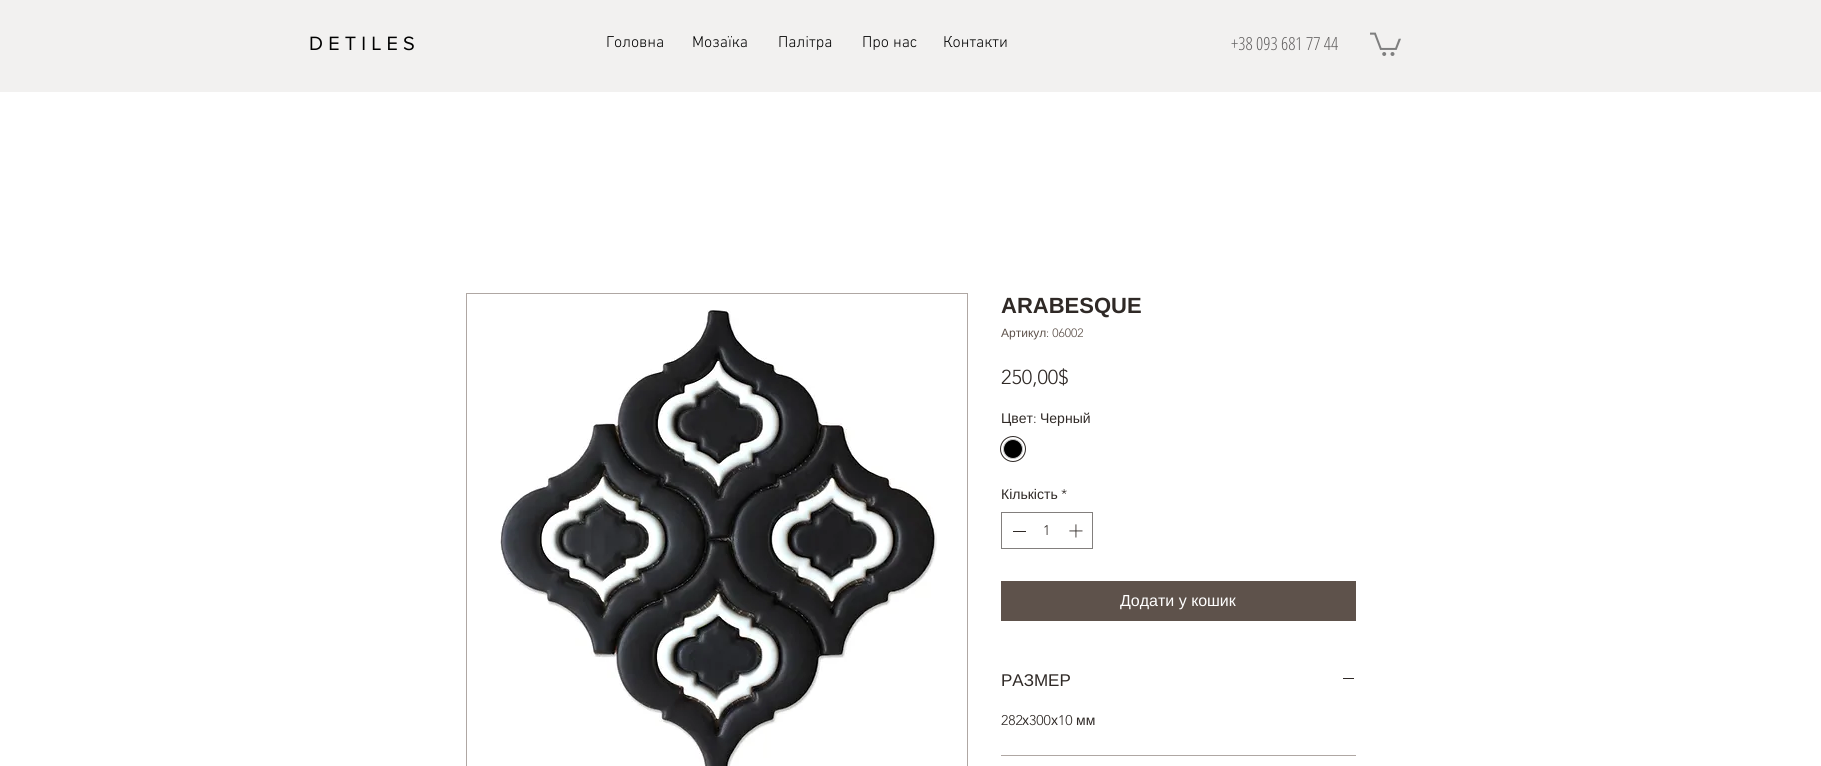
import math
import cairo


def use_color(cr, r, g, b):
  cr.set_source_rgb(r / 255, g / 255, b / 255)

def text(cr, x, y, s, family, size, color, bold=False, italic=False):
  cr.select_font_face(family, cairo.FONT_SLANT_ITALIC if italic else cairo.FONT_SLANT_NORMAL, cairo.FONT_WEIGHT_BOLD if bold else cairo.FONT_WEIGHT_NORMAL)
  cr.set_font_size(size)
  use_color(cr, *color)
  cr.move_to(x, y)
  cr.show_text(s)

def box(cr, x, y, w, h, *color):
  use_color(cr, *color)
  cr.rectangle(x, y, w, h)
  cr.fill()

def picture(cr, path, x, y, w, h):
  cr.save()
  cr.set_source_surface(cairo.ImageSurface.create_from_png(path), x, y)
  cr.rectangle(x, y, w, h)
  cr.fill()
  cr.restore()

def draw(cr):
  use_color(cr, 255, 255, 255)
  cr.paint()
  box(cr, 0, 0, 1821, 92, 242, 241, 240)
  picture(cr, "img_01.png", 1370, 32, 31, 24)
  cr.rectangle(466.5, 293.5, 501, 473)
  use_color(cr, 175, 167, 163)
  cr.set_line_width(1)
  cr.stroke()
  picture(cr, "img_02.png", 500, 310, 437, 456)
  cr.arc(1013, 449, 12.5, 0, 2 * math.pi)
  use_color(cr, 47, 41, 38)
  cr.stroke()
  use_color(cr, 0, 0, 0)
  cr.arc(1013, 449, 9.5, 0, 2 * math.pi)
  cr.fill_preserve()
  use_color(cr, 201, 201, 201)
  cr.stroke()
  cr.rectangle(1001.5, 512.5, 91, 36)
  use_color(cr, 130, 127, 125)
  cr.stroke()
  box(cr, 1013, 531, 13, 1, 47, 41, 38)
  picture(cr, "img_03.png", 1069, 524, 14, 14)
  box(cr, 1001, 581, 355, 40, 94, 82, 75)
  box(cr, 1001, 755, 355, 1, 175, 167, 163)
  box(cr, 1343, 678, 11, 1, 47, 41, 38)
  text(cr, 309, 50, "D E T I L E S", "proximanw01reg", 20, (0, 0, 0))
  text(cr, 606, 47, "Головна", "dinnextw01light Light", 16, (0, 0, 0))
  text(cr, 692, 47, "Мозаїка", "dinnextw01light Light", 16, (0, 0, 0))
  text(cr, 778, 47, "Палітра", "dinnextw01light Light", 16, (0, 0, 0))
  text(cr, 862, 47, "Про нас", "dinnextw01light Light", 16, (0, 0, 0))
  text(cr, 943, 47, "Контакти", "dinnextw01light Light", 16, (0, 0, 0))
  text(cr, 1231, 50, "+38 093 681 77 44", "Open Sans Condensed Light", 18, (96, 94, 94))
  text(cr, 1001, 313, "ARABESQUE", "Liberation Sans", 22, (47, 41, 38), bold=True)
  text(cr, 1001, 337, "Артикул", "Liberation Sans", 12, (94, 82, 75))
  text(cr, 1046, 337, ": 06002", "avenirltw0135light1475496 Light", 12, (94, 82, 75))
  text(cr, 1001, 384, "250,00$", "avenirltw0135light1475496 Light", 20, (47, 41, 38))
  text(cr, 1001, 423, "Цвет", "Liberation Sans", 14, (47, 41, 38))
  text(cr, 1033, 423, ":", "avenirltw0135light1475496 Light", 14, (47, 41, 38))
  text(cr, 1040, 423, "Черный", "Liberation Sans", 14, (47, 41, 38))
  text(cr, 1001, 499, "Кількість", "Liberation Sans", 14, (47, 41, 38))
  text(cr, 1061, 499, "*", "avenirltw0135light1475496 Light", 14, (47, 41, 38))
  text(cr, 1043, 535, "1", "avenirltw0135light1475496 Light", 14, (47, 41, 38))
  text(cr, 1120, 606, "Додати у кошик", "Liberation Sans", 16, (255, 255, 255))
  text(cr, 1001, 686, "РАЗМЕР", "Liberation Sans", 17, (47, 41, 38))
  text(cr, 1001, 725, "282", "avenirltw0135light1475496 Light", 14, (47, 41, 38))
  text(cr, 1022, 725, "х", "Liberation Sans", 14, (47, 41, 38))
  text(cr, 1029, 725, "300", "avenirltw0135light1475496 Light", 14, (47, 41, 38))
  text(cr, 1051, 725, "х", "Liberation Sans", 14, (47, 41, 38))
  text(cr, 1058, 725, "10", "avenirltw0135light1475496 Light", 14, (47, 41, 38))
  text(cr, 1076, 725, "мм", "Liberation Sans", 14, (47, 41, 38))


surface = cairo.ImageSurface(cairo.FORMAT_RGB24, 1821, 766)
cr = cairo.Context(surface)
options = cairo.FontOptions()
options.set_hint_metrics(cairo.HINT_METRICS_OFF)
options.set_hint_style(cairo.HINT_STYLE_NONE)
cr.set_font_options(options)
cr.set_miter_limit(4)
draw(cr)
surface.write_to_png("out.png")
